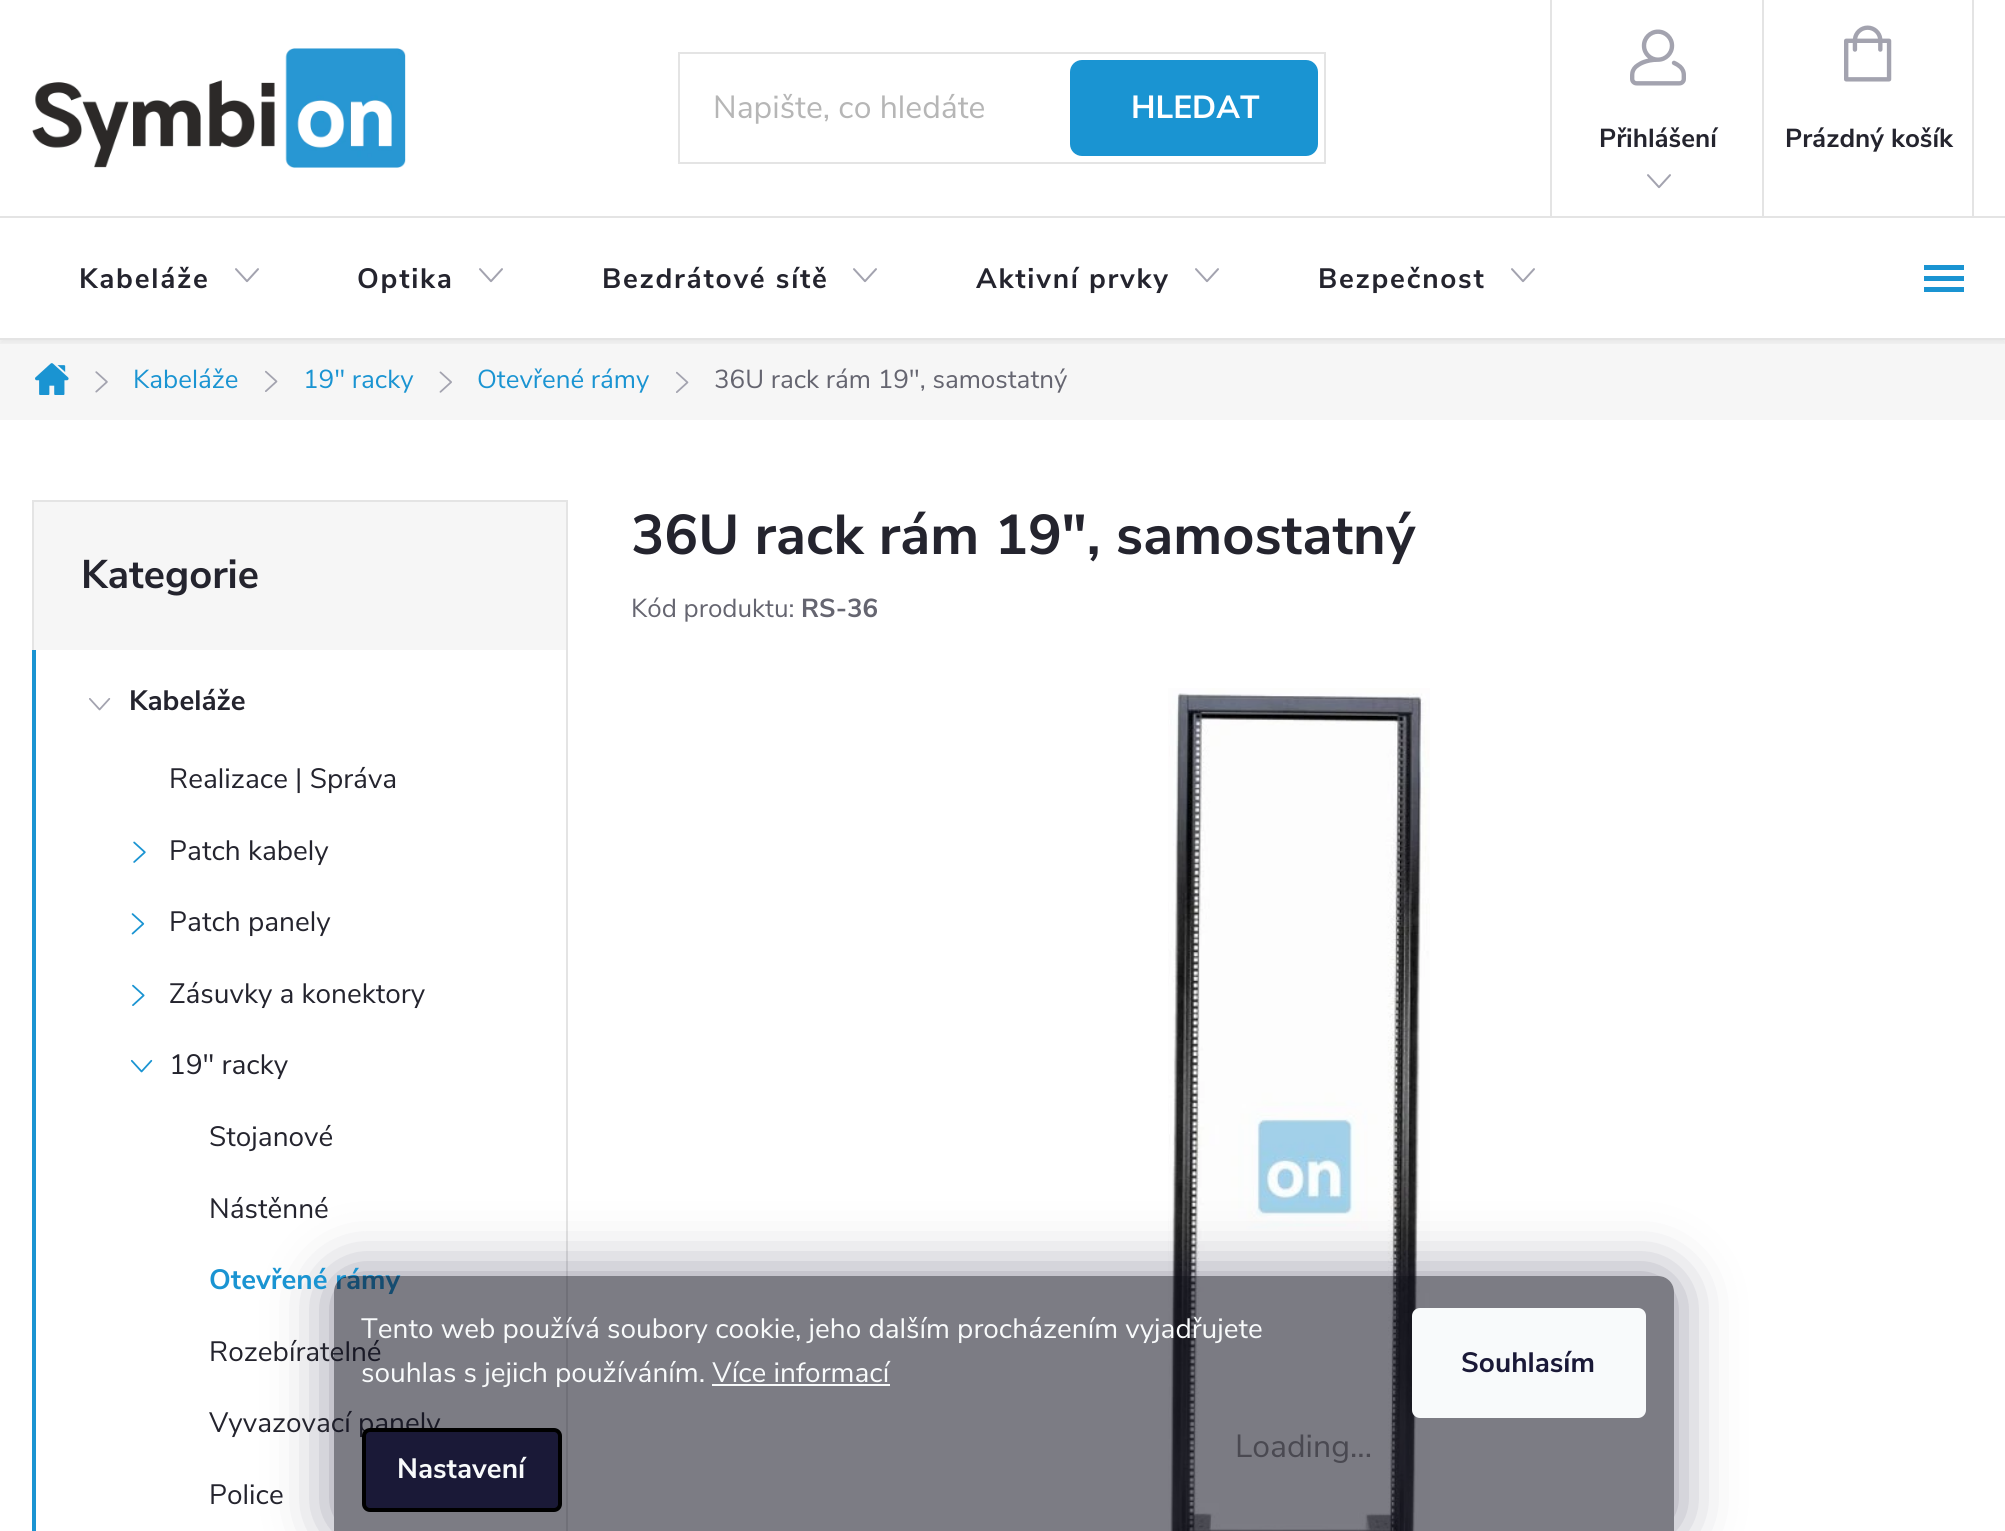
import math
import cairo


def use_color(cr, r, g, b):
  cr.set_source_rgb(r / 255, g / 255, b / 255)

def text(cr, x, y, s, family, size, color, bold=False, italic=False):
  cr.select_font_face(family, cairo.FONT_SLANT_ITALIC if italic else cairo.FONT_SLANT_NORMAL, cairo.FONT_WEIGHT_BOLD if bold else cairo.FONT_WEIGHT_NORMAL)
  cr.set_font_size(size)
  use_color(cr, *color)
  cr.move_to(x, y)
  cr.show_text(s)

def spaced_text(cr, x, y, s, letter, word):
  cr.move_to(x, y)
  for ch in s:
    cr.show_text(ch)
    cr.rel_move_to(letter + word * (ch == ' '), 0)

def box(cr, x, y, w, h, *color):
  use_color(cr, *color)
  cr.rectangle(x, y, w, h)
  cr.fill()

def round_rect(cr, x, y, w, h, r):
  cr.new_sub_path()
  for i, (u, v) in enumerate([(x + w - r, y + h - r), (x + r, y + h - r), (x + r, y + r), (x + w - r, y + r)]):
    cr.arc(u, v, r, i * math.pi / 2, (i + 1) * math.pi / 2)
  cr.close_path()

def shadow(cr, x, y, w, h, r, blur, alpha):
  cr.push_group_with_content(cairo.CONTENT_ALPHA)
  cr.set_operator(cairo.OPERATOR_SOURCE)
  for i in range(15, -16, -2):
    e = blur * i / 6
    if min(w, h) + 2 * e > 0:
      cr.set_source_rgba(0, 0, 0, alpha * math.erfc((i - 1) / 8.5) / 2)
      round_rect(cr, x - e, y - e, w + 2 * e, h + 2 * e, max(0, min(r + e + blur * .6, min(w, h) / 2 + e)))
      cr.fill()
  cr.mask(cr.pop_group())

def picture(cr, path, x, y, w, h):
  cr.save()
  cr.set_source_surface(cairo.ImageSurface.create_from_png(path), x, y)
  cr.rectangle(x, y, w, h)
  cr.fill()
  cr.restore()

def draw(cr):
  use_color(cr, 255, 255, 255)
  cr.paint()
  picture(cr, "img_01.png", 32, 48, 374, 120)
  cr.rectangle(679, 53, 646, 110)
  use_color(cr, 228, 228, 228)
  cr.stroke()
  use_color(cr, 26, 148, 210)
  round_rect(cr, 1071, 61, 246, 94, 11)
  cr.fill_preserve()
  cr.stroke()
  box(cr, 1550, 0, 2, 216, 228, 228, 228)
  picture(cr, "img_02.png", 1630, 29, 56, 57)
  picture(cr, "img_03.png", 1647, 174, 24, 15)
  box(cr, 1972, 0, 2, 216, 228, 228, 228)
  box(cr, 1762, 0, 2, 216, 228, 228, 228)
  picture(cr, "img_04.png", 1844, 25, 48, 57)
  box(cr, 0, 340, 2005, 80, 246, 246, 246)
  cr.save()
  cr.rectangle(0, 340, 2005, 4)
  cr.clip()
  use_color(cr, 0, 0, 0)
  shadow(cr, 0, 220, 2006, 124, 0, 2, 0.05)
  cr.restore()
  picture(cr, "img_03.png", 235, 268, 24, 15)
  picture(cr, "img_03.png", 479, 268, 24, 15)
  picture(cr, "img_03.png", 853, 268, 24, 15)
  picture(cr, "img_03.png", 1195, 268, 24, 15)
  picture(cr, "img_03.png", 1511, 268, 24, 15)
  use_color(cr, 26, 148, 210)
  cr.new_path()
  cr.move_to(1924, 292)
  cr.line_to(1964, 292)
  cr.line_to(1964, 287)
  cr.line_to(1924, 287)
  cr.close_path()
  cr.move_to(1924, 281)
  cr.line_to(1964, 281)
  cr.line_to(1964, 276)
  cr.line_to(1924, 276)
  cr.close_path()
  cr.move_to(1924, 265)
  cr.line_to(1924, 270)
  cr.line_to(1964, 270)
  cr.line_to(1964, 265)
  cr.close_path()
  cr.fill()
  box(cr, 0, 216, 2005, 2, 228, 228, 228)
  box(cr, 0, 338, 2005, 2, 228, 228, 228)
  picture(cr, "img_05.png", 35, 363, 34, 32)
  picture(cr, "img_06.png", 95, 371, 13, 22)
  picture(cr, "img_07.png", 265, 370, 13, 22)
  picture(cr, "img_08.png", 439, 371, 13, 22)
  picture(cr, "img_09.png", 676, 371, 13, 22)
  box(cr, 34, 502, 532, 148, 246, 246, 246)
  cr.rectangle(33, 501, 534, 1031)
  use_color(cr, 228, 228, 228)
  cr.stroke()
  box(cr, 32, 650, 4, 881, 26, 148, 210)
  picture(cr, "img_10.png", 89, 698, 22, 13)
  picture(cr, "img_11.png", 133, 841, 13, 22)
  picture(cr, "img_12.png", 131, 913, 14, 22)
  picture(cr, "img_13.png", 132, 984, 13, 22)
  picture(cr, "img_14.png", 130, 1059, 23, 14)
  picture(cr, "img_15.png", 1168, 688, 262, 843)
  cr.save()
  cr.set_fill_rule(cairo.FILL_RULE_EVEN_ODD)
  cr.new_path()
  cr.move_to(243, 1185)
  cr.line_to(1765, 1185)
  cr.line_to(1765, 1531)
  cr.line_to(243, 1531)
  cr.close_path()
  cr.move_to(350, 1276)
  cr.line_to(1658, 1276)
  cr.curve_to(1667, 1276, 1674, 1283, 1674, 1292)
  cr.line_to(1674, 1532)
  cr.line_to(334, 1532)
  cr.line_to(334, 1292)
  cr.curve_to(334, 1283, 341, 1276, 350, 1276)
  cr.close_path()
  cr.clip()
  use_color(cr, 27, 25, 57)
  shadow(cr, 334, 1276, 1340, 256, 16, 30, 0.5)
  cr.restore()
  text(cr, 713, 118, "Napište, co hledáte", "Nunito Sans", 32, (182, 182, 182))
  text(cr, 1131, 118, "HLEDAT", "Nunito Sans", 32, (255, 255, 255), bold=True)
  text(cr, 1599, 147, "Přihlášení", "Nunito Sans", 26, (36, 36, 46), bold=True)
  text(cr, 1785, 147, "Prázdný košík", "Nunito Sans", 26, (36, 36, 46), bold=True)
  cr.set_font_size(28)
  spaced_text(cr, 79, 288, "Kabeláže", 1.75, 0)
  spaced_text(cr, 357, 288, "Optika", 1.75, 0)
  spaced_text(cr, 602, 288, "Bezdrátové sítě", 1.75, 0)
  spaced_text(cr, 976, 288, "Aktivní prvky", 1.75, 0)
  spaced_text(cr, 1318, 288, "Bezpečnost", 1.75, 0)
  text(cr, 133, 388, "Kabeláže", "Nunito Sans", 26, (26, 148, 210))
  text(cr, 303, 388, "19\" racky", "Nunito Sans", 26, (26, 148, 210))
  text(cr, 477, 388, "Otevřené rámy", "Nunito Sans", 26, (26, 148, 210))
  text(cr, 714, 388, "36U rack rám 19\", samostatný", "Nunito Sans", 26, (101, 101, 112))
  text(cr, 81, 588, "Kategorie", "Nunito Sans", 40, (36, 36, 46), bold=True)
  text(cr, 129, 710, "Kabeláže", "Nunito Sans", 28, (36, 36, 46), bold=True)
  text(cr, 169, 788, "Realizace | Správa", "Nunito Sans", 28, (36, 36, 46))
  text(cr, 169, 860, "Patch kabely", "Nunito Sans", 28, (36, 36, 46))
  text(cr, 169, 931, "Patch panely", "Nunito Sans", 28, (36, 36, 46))
  text(cr, 169, 1003, "Zásuvky a konektory", "Nunito Sans", 28, (36, 36, 46))
  text(cr, 169, 1074, "19\" racky", "Nunito Sans", 28, (36, 36, 46))
  text(cr, 209, 1146, "Stojanové", "Nunito Sans", 28, (36, 36, 46))
  text(cr, 209, 1218, "Nástěnné", "Nunito Sans", 28, (36, 36, 46))
  text(cr, 209, 1289, "Otevřené rámy", "Nunito Sans", 28, (26, 148, 210), bold=True)
  text(cr, 209, 1361, "Rozebíratelné", "Nunito Sans", 28, (36, 36, 46))
  text(cr, 209, 1432, "Vyvazovací panely", "Nunito Sans", 28, (36, 36, 46))
  text(cr, 209, 1504, "Police", "Nunito Sans", 28, (36, 36, 46))
  text(cr, 631, 554, "36U rack rám 19\", samostatný", "Nunito Sans", 56, (36, 36, 46), bold=True)
  text(cr, 631, 617, "Kód produktu:", "Nunito Sans", 26, (101, 101, 112))
  text(cr, 801, 617, "RS-36", "Nunito Sans", 26, (101, 101, 112), bold=True)
  text(cr, 1235, 1457, "Loading...", "Nunito Sans", 32, (144, 143, 143))
  cr.set_source_rgba(0.067, 0.067, 0.122, 0.55)
  cr.new_path()
  cr.move_to(350, 1276)
  cr.line_to(1658, 1276)
  cr.curve_to(1667, 1276, 1674, 1283, 1674, 1292)
  cr.line_to(1674, 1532)
  cr.line_to(334, 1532)
  cr.line_to(334, 1292)
  cr.curve_to(334, 1283, 341, 1276, 350, 1276)
  cr.close_path()
  cr.fill()
  text(cr, 361, 1338, "Tento web používá soubory cookie, jeho dalším procházením vyjadřujete", "Nunito Sans", 28, (248, 250, 251))
  text(cr, 361, 1382, "souhlas s jejich používáním. Více informací", "Nunito Sans", 28, (248, 250, 251))
  box(cr, 712, 1384, 178, 2, 248, 250, 251)
  use_color(cr, 26, 25, 55)
  round_rect(cr, 364, 1430, 196, 80, 6)
  cr.fill_preserve()
  use_color(cr, 0, 0, 0)
  cr.set_line_width(4)
  cr.stroke()
  text(cr, 397, 1478, "Nastavení", "Nunito Sans", 28, (248, 250, 251), bold=True)
  round_rect(cr, 1412, 1308, 234, 110, 8)
  cr.fill()
  text(cr, 1461, 1372, "Souhlasím", "Nunito Sans", 28, (26, 25, 55), bold=True)


surface = cairo.ImageSurface(cairo.FORMAT_RGB24, 2005, 1531)
cr = cairo.Context(surface)
options = cairo.FontOptions()
options.set_hint_metrics(cairo.HINT_METRICS_OFF)
options.set_hint_style(cairo.HINT_STYLE_NONE)
cr.set_font_options(options)
cr.set_miter_limit(4)
draw(cr)
surface.write_to_png("out.png")
